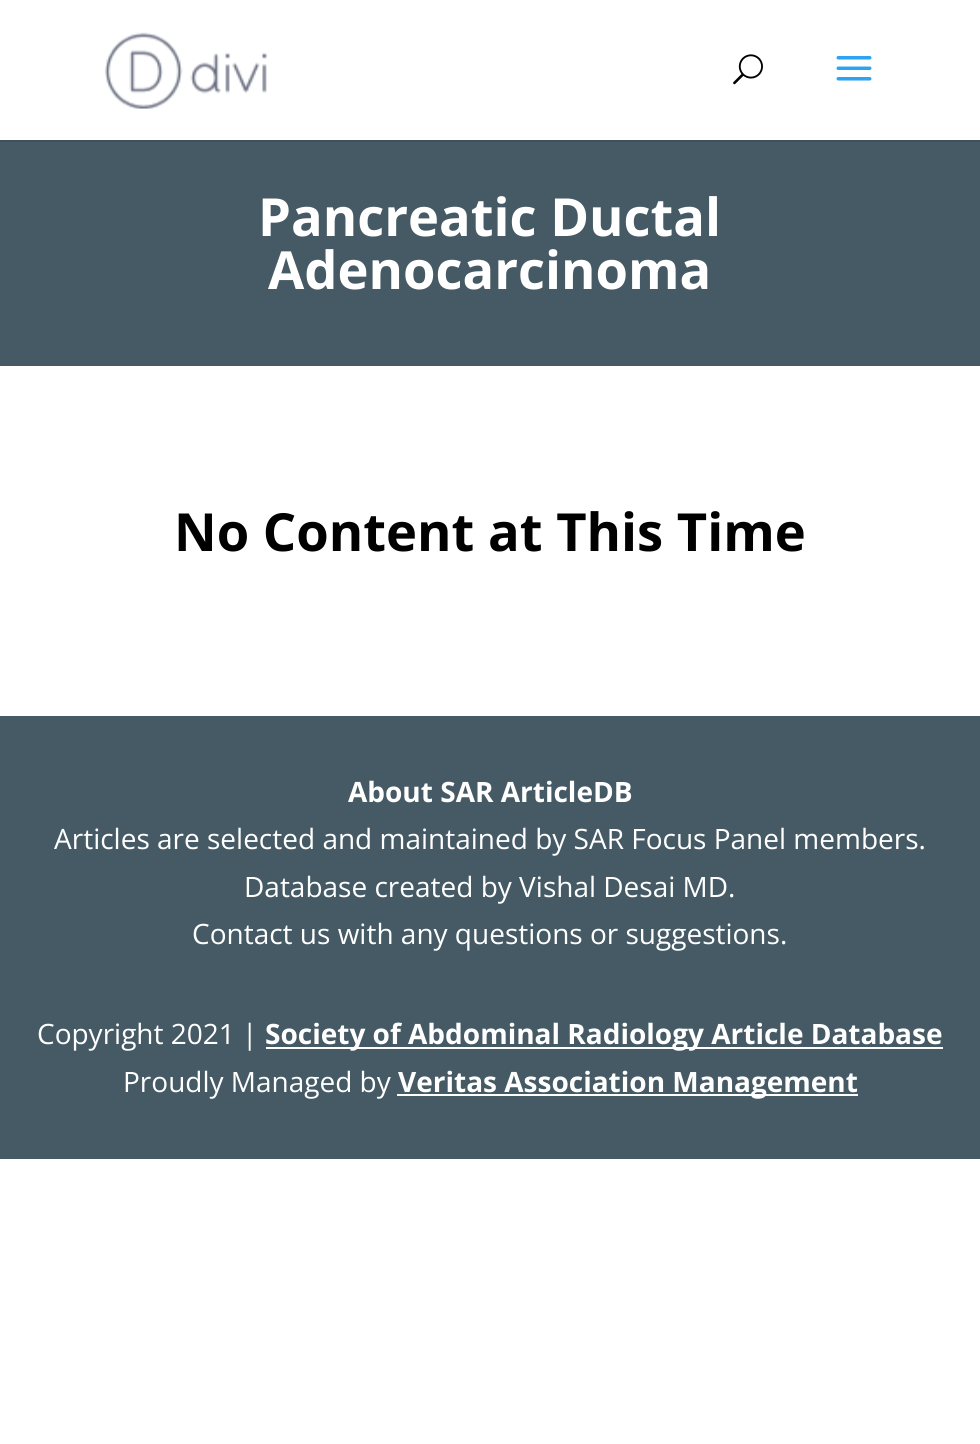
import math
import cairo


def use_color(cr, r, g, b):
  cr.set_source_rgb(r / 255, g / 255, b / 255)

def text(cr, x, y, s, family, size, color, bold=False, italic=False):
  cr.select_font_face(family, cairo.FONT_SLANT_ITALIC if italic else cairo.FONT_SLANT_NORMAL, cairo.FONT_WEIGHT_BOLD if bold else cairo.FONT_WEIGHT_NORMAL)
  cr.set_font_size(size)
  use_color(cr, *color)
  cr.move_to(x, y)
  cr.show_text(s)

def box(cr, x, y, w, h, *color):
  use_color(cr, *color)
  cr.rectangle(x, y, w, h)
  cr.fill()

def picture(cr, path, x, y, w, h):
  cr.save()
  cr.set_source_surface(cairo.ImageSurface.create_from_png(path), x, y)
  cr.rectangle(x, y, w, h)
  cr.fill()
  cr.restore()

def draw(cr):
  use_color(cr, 255, 255, 255)
  cr.paint()
  box(cr, 0, 140, 980, 2, 62, 81, 90)
  picture(cr, "img_01.png", 105, 32, 163, 77)
  picture(cr, "img_02.png", 733, 54, 30, 31)
  picture(cr, "img_03.png", 836, 56, 36, 25)
  box(cr, 0, 142, 980, 224, 69, 90, 100)
  box(cr, 0, 716, 980, 443, 69, 90, 100)
  box(cr, 266, 1047, 677, 2, 255, 255, 255)
  box(cr, 397, 1094, 461, 2, 255, 255, 255)
  text(cr, 258, 236, "Pancreatic Ductal", "Open Sans", 52.5, (255, 255, 255), bold=True)
  text(cr, 268, 289, "Adenocarcinoma", "Open Sans", 52.5, (255, 255, 255), bold=True)
  text(cr, 174, 551, "No Content at This Time", "Open Sans", 52.5, (0, 0, 0), bold=True)
  text(cr, 348, 802, "About SAR ArticleDB", "Open Sans", 28, (255, 255, 255), bold=True)
  text(cr, 54, 849, "Articles are selected and maintained by SAR Focus Panel members.", "Open Sans", 28, (255, 255, 255))
  text(cr, 244, 897, "Database created by Vishal Desai MD.", "Open Sans", 28, (255, 255, 255))
  text(cr, 192, 944, "Contact us with any questions or suggestions.", "Open Sans", 28, (255, 255, 255))
  text(cr, 37, 1044, "Copyright 2021 |", "Open Sans", 28, (255, 255, 255))
  text(cr, 265, 1044, "Society of Abdominal Radiology Article Database", "Open Sans", 28, (255, 255, 255), bold=True)
  text(cr, 123, 1092, "Proudly Managed by", "Open Sans", 28, (255, 255, 255))
  text(cr, 398, 1092, "Veritas Association Management", "Open Sans", 28, (255, 255, 255), bold=True)


surface = cairo.ImageSurface(cairo.FORMAT_RGB24, 980, 1444)
cr = cairo.Context(surface)
options = cairo.FontOptions()
options.set_hint_metrics(cairo.HINT_METRICS_OFF)
options.set_hint_style(cairo.HINT_STYLE_NONE)
cr.set_font_options(options)
cr.set_miter_limit(4)
draw(cr)
surface.write_to_png("out.png")
